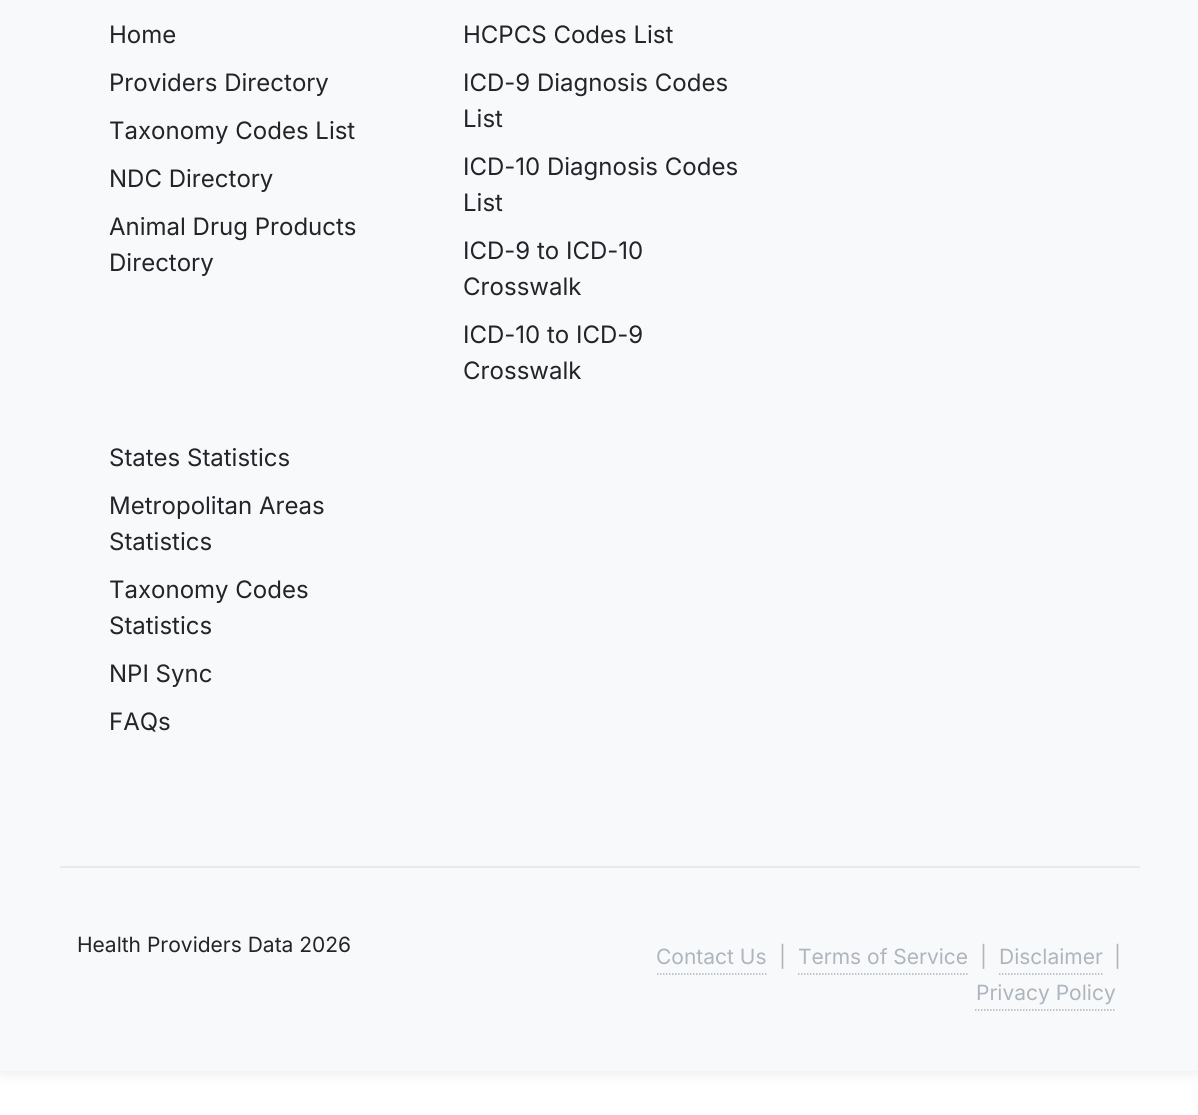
import math
import cairo


def use_color(cr, r, g, b):
  cr.set_source_rgb(r / 255, g / 255, b / 255)

def text(cr, x, y, s, family, size, color, bold=False, italic=False):
  cr.select_font_face(family, cairo.FONT_SLANT_ITALIC if italic else cairo.FONT_SLANT_NORMAL, cairo.FONT_WEIGHT_BOLD if bold else cairo.FONT_WEIGHT_NORMAL)
  cr.set_font_size(size)
  use_color(cr, *color)
  cr.move_to(x, y)
  cr.show_text(s)

def box(cr, x, y, w, h, *color):
  use_color(cr, *color)
  cr.rectangle(x, y, w, h)
  cr.fill()

def round_rect(cr, x, y, w, h, r):
  cr.new_sub_path()
  for i, (u, v) in enumerate([(x + w - r, y + h - r), (x + r, y + h - r), (x + r, y + r), (x + w - r, y + r)]):
    cr.arc(u, v, r, i * math.pi / 2, (i + 1) * math.pi / 2)
  cr.close_path()

def shadow(cr, x, y, w, h, r, blur, alpha):
  cr.push_group_with_content(cairo.CONTENT_ALPHA)
  cr.set_operator(cairo.OPERATOR_SOURCE)
  for i in range(15, -16, -2):
    e = blur * i / 6
    if min(w, h) + 2 * e > 0:
      cr.set_source_rgba(0, 0, 0, alpha * math.erfc((i - 1) / 8.5) / 2)
      round_rect(cr, x - e, y - e, w + 2 * e, h + 2 * e, max(0, min(r + e + blur * .6, min(w, h) / 2 + e)))
      cr.fill()
  cr.mask(cr.pop_group())

def draw(cr):
  use_color(cr, 255, 255, 255)
  cr.paint()
  use_color(cr, 0, 0, 0)
  shadow(cr, 0, -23, 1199, 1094, 0, 7.5, 0.1)
  box(cr, 0, 0, 1198, 1071, 248, 249, 250)
  box(cr, 60, 866, 1080, 2, 233, 234, 235)
  cr.new_path()
  cr.move_to(657, 974)
  cr.line_to(766.5, 974)
  use_color(cr, 173, 181, 189)
  cr.set_line_width(1.5)
  cr.set_dash([1.5, 1.5])
  cr.stroke()
  cr.new_path()
  cr.move_to(798, 974)
  cr.line_to(967.5, 974)
  cr.stroke()
  cr.new_path()
  cr.move_to(999, 974)
  cr.line_to(1102.5, 974)
  cr.stroke()
  cr.new_path()
  cr.move_to(975, 1010)
  cr.line_to(1116, 1010)
  cr.stroke()
  text(cr, 109, 43, "Home", "Inter", 24, (33, 37, 41))
  text(cr, 109, 91, "Providers Directory", "Inter", 24, (33, 37, 41))
  text(cr, 109, 139, "Taxonomy Codes List", "Inter", 24, (33, 37, 41))
  text(cr, 109, 187, "NDC Directory", "Inter", 24, (33, 37, 41))
  text(cr, 109, 235, "Animal Drug Products", "Inter", 24, (33, 37, 41))
  text(cr, 109, 271, "Directory", "Inter", 24, (33, 37, 41))
  text(cr, 463, 43, "HCPCS Codes List", "Inter", 24, (33, 37, 41))
  text(cr, 463, 91, "ICD-9 Diagnosis Codes", "Inter", 24, (33, 37, 41))
  text(cr, 463, 127, "List", "Inter", 24, (33, 37, 41))
  text(cr, 463, 175, "ICD-10 Diagnosis Codes", "Inter", 24, (33, 37, 41))
  text(cr, 463, 211, "List", "Inter", 24, (33, 37, 41))
  text(cr, 463, 259, "ICD-9 to ICD-10", "Inter", 24, (33, 37, 41))
  text(cr, 463, 295, "Crosswalk", "Inter", 24, (33, 37, 41))
  text(cr, 463, 343, "ICD-10 to ICD-9", "Inter", 24, (33, 37, 41))
  text(cr, 463, 379, "Crosswalk", "Inter", 24, (33, 37, 41))
  text(cr, 109, 466, "States Statistics", "Inter", 24, (33, 37, 41))
  text(cr, 109, 514, "Metropolitan Areas", "Inter", 24, (33, 37, 41))
  text(cr, 109, 550, "Statistics", "Inter", 24, (33, 37, 41))
  text(cr, 109, 598, "Taxonomy Codes", "Inter", 24, (33, 37, 41))
  text(cr, 109, 634, "Statistics", "Inter", 24, (33, 37, 41))
  text(cr, 109, 682, "NPI Sync", "Inter", 24, (33, 37, 41))
  text(cr, 109, 730, "FAQs", "Inter", 24, (33, 37, 41))
  text(cr, 77, 952, "Health Providers Data 2026", "Inter", 21, (33, 37, 41))
  text(cr, 656, 964, "Contact Us", "Inter", 21, (173, 181, 189))
  text(cr, 779, 964, "|", "Inter", 21, (173, 181, 189))
  text(cr, 798, 964, "Terms of Service", "Inter", 21, (173, 181, 189))
  text(cr, 980, 964, "|", "Inter", 21, (173, 181, 189))
  text(cr, 999, 964, "Disclaimer", "Inter", 21, (173, 181, 189))
  text(cr, 1114, 964, "|", "Inter", 21, (173, 181, 189))
  text(cr, 976, 1000, "Privacy Policy", "Inter", 21, (173, 181, 189))


surface = cairo.ImageSurface(cairo.FORMAT_RGB24, 1198, 1115)
cr = cairo.Context(surface)
options = cairo.FontOptions()
options.set_hint_metrics(cairo.HINT_METRICS_OFF)
options.set_hint_style(cairo.HINT_STYLE_NONE)
cr.set_font_options(options)
cr.set_miter_limit(4)
draw(cr)
surface.write_to_png("out.png")
